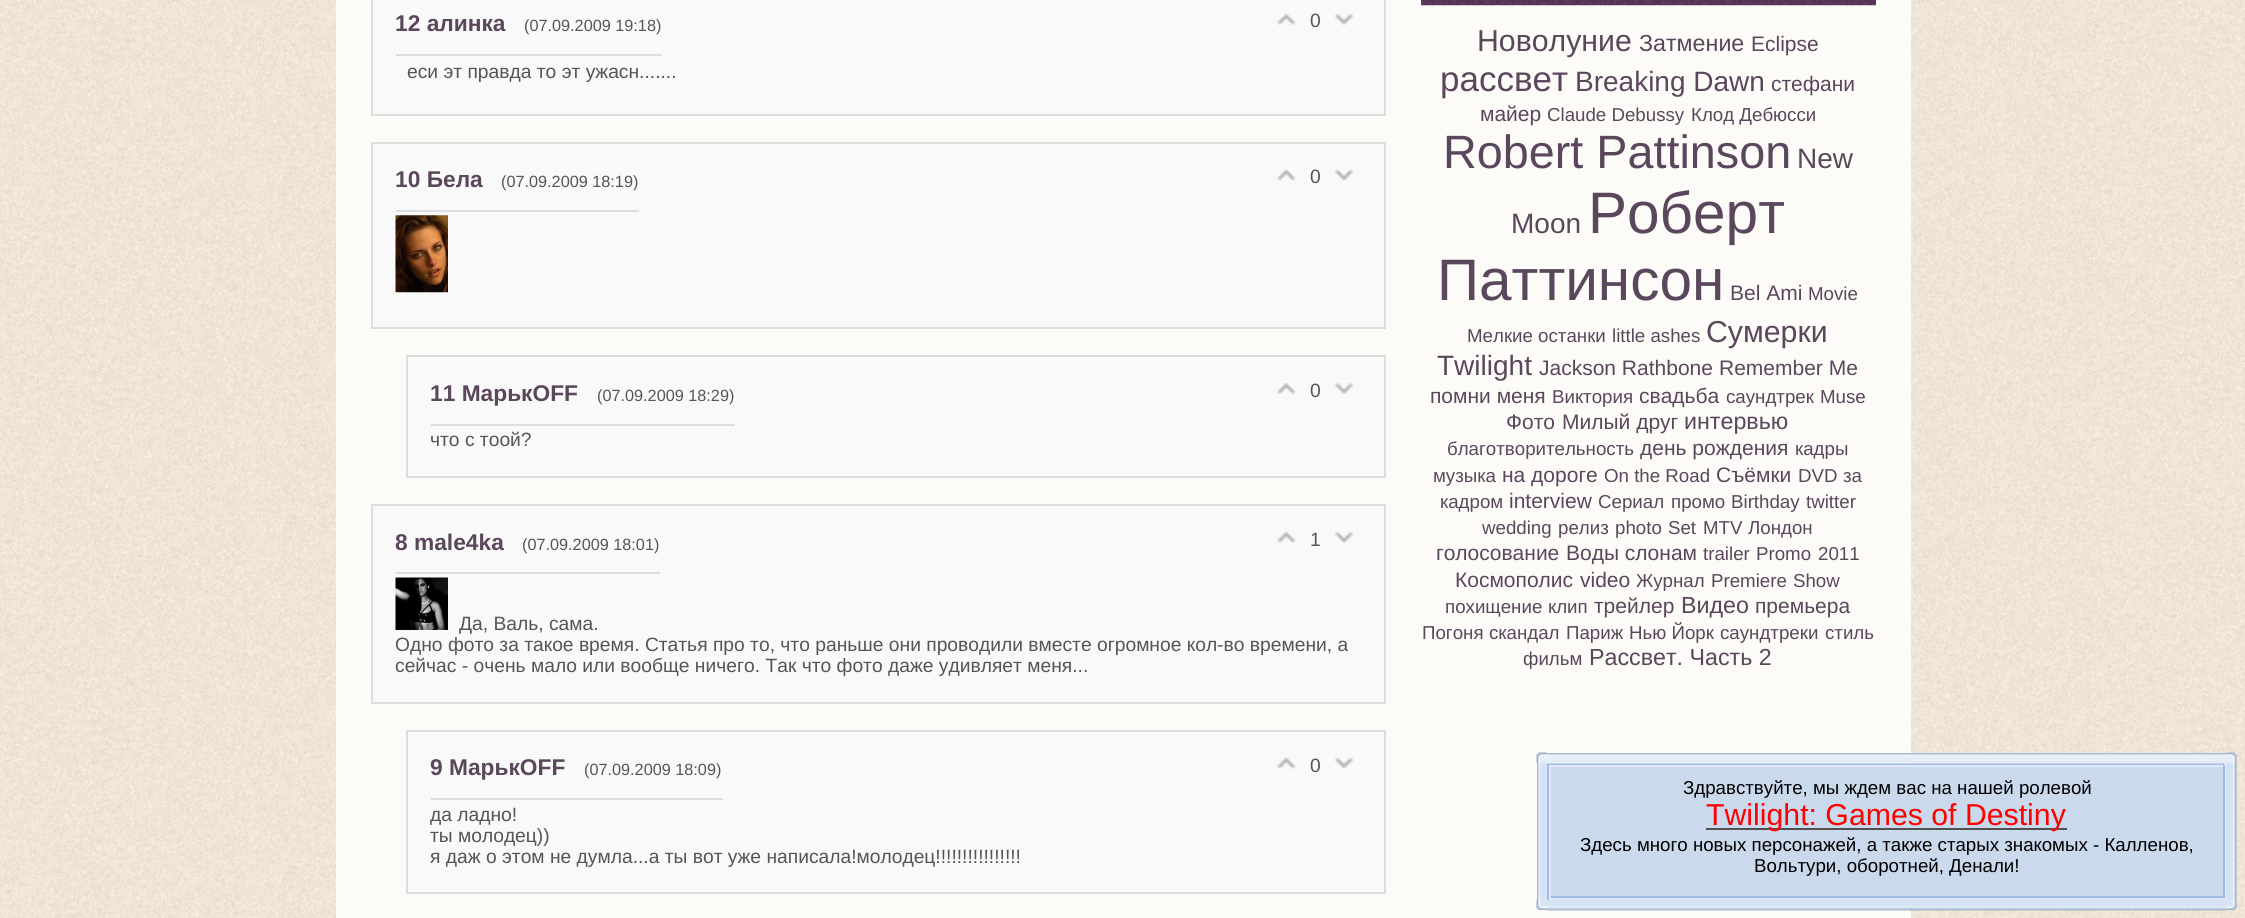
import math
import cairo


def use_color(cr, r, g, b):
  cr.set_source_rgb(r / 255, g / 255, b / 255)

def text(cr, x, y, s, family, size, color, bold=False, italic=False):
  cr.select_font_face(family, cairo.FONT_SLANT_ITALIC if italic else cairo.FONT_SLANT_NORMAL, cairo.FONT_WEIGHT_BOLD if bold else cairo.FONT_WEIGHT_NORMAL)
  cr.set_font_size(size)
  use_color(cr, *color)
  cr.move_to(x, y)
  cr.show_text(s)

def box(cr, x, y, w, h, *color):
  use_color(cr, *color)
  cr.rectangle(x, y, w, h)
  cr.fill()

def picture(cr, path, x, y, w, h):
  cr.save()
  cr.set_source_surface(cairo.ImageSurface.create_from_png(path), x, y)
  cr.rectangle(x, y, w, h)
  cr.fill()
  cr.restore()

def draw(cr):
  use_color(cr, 255, 255, 255)
  cr.paint()
  picture(cr, "img_01.png", 0, 0, 2245, 918)
  box(cr, 336, 0, 1575, 918, 253, 251, 248)
  use_color(cr, 249, 249, 249)
  cr.rectangle(372, -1, 1013, 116)
  cr.fill_preserve()
  use_color(cr, 221, 221, 221)
  cr.stroke()
  box(cr, 396, 54, 266, 2, 221, 221, 221)
  picture(cr, "img_02.png", 1277, 13, 19, 12)
  picture(cr, "img_03.png", 1335, 13, 19, 12)
  use_color(cr, 249, 249, 249)
  cr.rectangle(372, 143, 1013, 185)
  cr.fill_preserve()
  use_color(cr, 221, 221, 221)
  cr.stroke()
  box(cr, 396, 210, 243, 2, 221, 221, 221)
  picture(cr, "img_04.png", 1277, 169, 19, 12)
  picture(cr, "img_05.png", 1335, 169, 19, 12)
  picture(cr, "img_06.png", 395, 215, 53, 78)
  use_color(cr, 249, 249, 249)
  cr.rectangle(407, 356, 978, 121)
  cr.fill_preserve()
  use_color(cr, 221, 221, 221)
  cr.stroke()
  box(cr, 431, 424, 304, 2, 221, 221, 221)
  picture(cr, "img_07.png", 1277, 383, 19, 12)
  picture(cr, "img_08.png", 1335, 383, 19, 12)
  use_color(cr, 249, 249, 249)
  cr.rectangle(372, 505, 1013, 198)
  cr.fill_preserve()
  use_color(cr, 221, 221, 221)
  cr.stroke()
  box(cr, 396, 572, 264, 2, 221, 221, 221)
  picture(cr, "img_02.png", 1277, 531, 19, 12)
  picture(cr, "img_03.png", 1335, 531, 19, 12)
  picture(cr, "img_09.png", 395, 577, 53, 53)
  use_color(cr, 249, 249, 249)
  cr.rectangle(407, 731, 978, 162)
  cr.fill_preserve()
  use_color(cr, 221, 221, 221)
  cr.stroke()
  box(cr, 431, 798, 292, 2, 221, 221, 221)
  picture(cr, "img_04.png", 1277, 757, 19, 12)
  picture(cr, "img_05.png", 1335, 757, 19, 12)
  picture(cr, "img_10.png", 1421, 0, 455, 6)
  picture(cr, "img_11.png", 1536, 752, 12, 11)
  picture(cr, "img_12.png", 2225, 752, 12, 11)
  box(cr, 1547, 763, 679, 2, 163, 186, 233)
  box(cr, 2224, 763, 2, 137, 223, 232, 246)
  box(cr, 1547, 898, 679, 2, 223, 232, 246)
  box(cr, 1547, 763, 2, 137, 163, 186, 233)
  picture(cr, "img_13.png", 1547, 753, 679, 11)
  picture(cr, "img_14.png", 1537, 763, 10, 137)
  picture(cr, "img_15.png", 2226, 763, 11, 137)
  box(cr, 1551, 767, 672, 129, 202, 217, 236)
  box(cr, 1549, 765, 675, 2, 223, 232, 246)
  box(cr, 2223, 765, 2, 133, 163, 186, 233)
  box(cr, 1549, 896, 675, 2, 163, 186, 233)
  box(cr, 1549, 765, 2, 133, 223, 232, 246)
  box(cr, 1706, 828, 361, 2, 81, 81, 81)
  picture(cr, "img_16.png", 1536, 899, 12, 11)
  picture(cr, "img_17.png", 2225, 899, 12, 11)
  picture(cr, "img_18.png", 1547, 900, 679, 11)
  text(cr, 395, 31, "12 алинка", "Liberation Sans", 22.75, (90, 71, 91), bold=True)
  text(cr, 524, 31, "(07.09.2009 19:18)", "Liberation Sans", 16.25, (85, 85, 85))
  text(cr, 1310, 27, "0", "Liberation Sans", 19.25, (85, 85, 85))
  text(cr, 407, 78, "еси эт правда то эт ужасн.......", "Liberation Sans", 19.25, (85, 85, 85))
  text(cr, 395, 187, "10 Бела", "Liberation Sans", 22.75, (90, 71, 91), bold=True)
  text(cr, 501, 187, "(07.09.2009 18:19)", "Liberation Sans", 16.25, (85, 85, 85))
  text(cr, 1310, 183, "0", "Liberation Sans", 19.25, (85, 85, 85))
  text(cr, 430, 401, "11 МарькOFF", "Liberation Sans", 22.75, (90, 71, 91), bold=True)
  text(cr, 597, 401, "(07.09.2009 18:29)", "Liberation Sans", 16.25, (85, 85, 85))
  text(cr, 1310, 397, "0", "Liberation Sans", 19.25, (85, 85, 85))
  text(cr, 430, 446, "что с тоой?", "Liberation Sans", 19.25, (85, 85, 85))
  text(cr, 395, 550, "8 male4ka", "Liberation Sans", 22.75, (90, 71, 91), bold=True)
  text(cr, 522, 550, "(07.09.2009 18:01)", "Liberation Sans", 16.25, (85, 85, 85))
  text(cr, 1310, 546, "1", "Liberation Sans", 19.25, (85, 85, 85))
  text(cr, 459, 630, "Да, Валь, сама.", "Liberation Sans", 19.25, (85, 85, 85))
  text(cr, 395, 651, "Одно фото за такое время. Статья про то, что раньше они проводили вместе огромное кол-во времени, а", "Liberation Sans", 19.25, (85, 85, 85))
  text(cr, 395, 672, "сейчас - очень мало или вообще ничего. Так что фото даже удивляет меня...", "Liberation Sans", 19.25, (85, 85, 85))
  text(cr, 430, 775, "9 МарькOFF", "Liberation Sans", 22.75, (90, 71, 91), bold=True)
  text(cr, 584, 775, "(07.09.2009 18:09)", "Liberation Sans", 16.25, (85, 85, 85))
  text(cr, 1310, 772, "0", "Liberation Sans", 19.25, (85, 85, 85))
  text(cr, 430, 821, "да ладно!", "Liberation Sans", 19.25, (85, 85, 85))
  text(cr, 430, 842, "ты молодец))", "Liberation Sans", 19.25, (85, 85, 85))
  text(cr, 430, 863, "я даж о этом не думла...а ты вот уже написала!молодец!!!!!!!!!!!!!!!!", "Liberation Sans", 19.25, (85, 85, 85))
  text(cr, 1477, 51, "Новолуние", "Liberation Sans", 30.25, (90, 71, 91))
  text(cr, 1639, 51, "Затмение", "Liberation Sans", 23.25, (90, 71, 91))
  text(cr, 1751, 51, "Eclipse", "Liberation Sans", 21, (90, 71, 91))
  text(cr, 1440, 91, "рассвет", "Liberation Sans", 35, (90, 71, 91))
  text(cr, 1575, 91, "Breaking Dawn", "Liberation Sans", 28, (90, 71, 91))
  text(cr, 1771, 91, "стефани", "Liberation Sans", 21, (90, 71, 91))
  text(cr, 1480, 121, "майер", "Liberation Sans", 21, (90, 71, 91))
  text(cr, 1547, 121, "Claude Debussy", "Liberation Sans", 18.7, (90, 71, 91))
  text(cr, 1691, 121, "Клод Дебюсси", "Liberation Sans", 18.7, (90, 71, 91))
  text(cr, 1443, 168, "Robert Pattinson", "Liberation Sans", 46.75, (90, 71, 91))
  text(cr, 1797, 168, "New", "Liberation Sans", 28, (90, 71, 91))
  text(cr, 1511, 233, "Moon", "Liberation Sans", 28, (90, 71, 91))
  text(cr, 1588, 233, "Роберт", "Liberation Sans", 58.5, (90, 71, 91))
  text(cr, 1437, 300, "Паттинсон", "Liberation Sans", 58.5, (90, 71, 91))
  text(cr, 1730, 300, "Bel Ami", "Liberation Sans", 21, (90, 71, 91))
  text(cr, 1808, 300, "Movie", "Liberation Sans", 18.7, (90, 71, 91))
  text(cr, 1467, 342, "Мелкие останки", "Liberation Sans", 18.7, (90, 71, 91))
  text(cr, 1612, 342, "little ashes", "Liberation Sans", 18.7, (90, 71, 91))
  text(cr, 1706, 342, "Сумерки", "Liberation Sans", 30.25, (90, 71, 91))
  text(cr, 1437, 375, "Twilight", "Liberation Sans", 28, (90, 71, 91))
  text(cr, 1539, 375, "Jackson Rathbone", "Liberation Sans", 21, (90, 71, 91))
  text(cr, 1719, 375, "Remember Me", "Liberation Sans", 21, (90, 71, 91))
  text(cr, 1430, 403, "помни меня", "Liberation Sans", 21, (90, 71, 91))
  text(cr, 1552, 403, "Виктория", "Liberation Sans", 18.7, (90, 71, 91))
  text(cr, 1639, 403, "свадьба", "Liberation Sans", 21, (90, 71, 91))
  text(cr, 1726, 403, "саундтрек", "Liberation Sans", 18.7, (90, 71, 91))
  text(cr, 1820, 403, "Muse", "Liberation Sans", 18.7, (90, 71, 91))
  text(cr, 1506, 429, "Фото", "Liberation Sans", 21, (90, 71, 91))
  text(cr, 1562, 429, "Милый друг", "Liberation Sans", 21, (90, 71, 91))
  text(cr, 1684, 429, "интервью", "Liberation Sans", 23.25, (90, 71, 91))
  text(cr, 1447, 455, "благотворительность", "Liberation Sans", 18.7, (90, 71, 91))
  text(cr, 1640, 455, "день рождения", "Liberation Sans", 21, (90, 71, 91))
  text(cr, 1795, 455, "кадры", "Liberation Sans", 18.7, (90, 71, 91))
  text(cr, 1433, 482, "музыка", "Liberation Sans", 18.7, (90, 71, 91))
  text(cr, 1502, 482, "на дороге", "Liberation Sans", 21, (90, 71, 91))
  text(cr, 1604, 482, "On the Road", "Liberation Sans", 18.7, (90, 71, 91))
  text(cr, 1716, 482, "Съёмки", "Liberation Sans", 21, (90, 71, 91))
  text(cr, 1798, 482, "DVD", "Liberation Sans", 18.7, (90, 71, 91))
  text(cr, 1843, 482, "за", "Liberation Sans", 18.7, (90, 71, 91))
  text(cr, 1440, 508, "кадром", "Liberation Sans", 18.7, (90, 71, 91))
  text(cr, 1509, 508, "interview", "Liberation Sans", 21, (90, 71, 91))
  text(cr, 1598, 508, "Сериал", "Liberation Sans", 18.7, (90, 71, 91))
  text(cr, 1671, 508, "промо", "Liberation Sans", 18.7, (90, 71, 91))
  text(cr, 1731, 508, "Birthday", "Liberation Sans", 18.7, (90, 71, 91))
  text(cr, 1806, 508, "twitter", "Liberation Sans", 18.7, (90, 71, 91))
  text(cr, 1482, 534, "wedding", "Liberation Sans", 18.7, (90, 71, 91))
  text(cr, 1558, 534, "релиз", "Liberation Sans", 18.7, (90, 71, 91))
  text(cr, 1615, 534, "photo", "Liberation Sans", 18.7, (90, 71, 91))
  text(cr, 1668, 534, "Set", "Liberation Sans", 18.7, (90, 71, 91))
  text(cr, 1703, 534, "MTV", "Liberation Sans", 18.7, (90, 71, 91))
  text(cr, 1748, 534, "Лондон", "Liberation Sans", 18.7, (90, 71, 91))
  text(cr, 1436, 560, "голосование", "Liberation Sans", 21, (90, 71, 91))
  text(cr, 1566, 560, "Воды слонам", "Liberation Sans", 21, (90, 71, 91))
  text(cr, 1703, 560, "trailer", "Liberation Sans", 18.7, (90, 71, 91))
  text(cr, 1756, 560, "Promo", "Liberation Sans", 18.7, (90, 71, 91))
  text(cr, 1818, 560, "2011", "Liberation Sans", 18.7, (90, 71, 91))
  text(cr, 1455, 587, "Космополис", "Liberation Sans", 21, (90, 71, 91))
  text(cr, 1580, 587, "video", "Liberation Sans", 21, (90, 71, 91))
  text(cr, 1636, 587, "Журнал", "Liberation Sans", 18.7, (90, 71, 91))
  text(cr, 1711, 587, "Premiere", "Liberation Sans", 18.7, (90, 71, 91))
  text(cr, 1793, 587, "Show", "Liberation Sans", 18.7, (90, 71, 91))
  text(cr, 1445, 613, "похищение", "Liberation Sans", 18.7, (90, 71, 91))
  text(cr, 1548, 613, "клип", "Liberation Sans", 18.7, (90, 71, 91))
  text(cr, 1594, 613, "трейлер", "Liberation Sans", 21, (90, 71, 91))
  text(cr, 1681, 613, "Видео", "Liberation Sans", 23.25, (90, 71, 91))
  text(cr, 1755, 613, "премьера", "Liberation Sans", 21, (90, 71, 91))
  text(cr, 1422, 639, "Погоня", "Liberation Sans", 18.7, (90, 71, 91))
  text(cr, 1489, 639, "скандал", "Liberation Sans", 18.7, (90, 71, 91))
  text(cr, 1566, 639, "Париж", "Liberation Sans", 18.7, (90, 71, 91))
  text(cr, 1629, 639, "Нью Йорк", "Liberation Sans", 18.7, (90, 71, 91))
  text(cr, 1720, 639, "саундтреки", "Liberation Sans", 18.7, (90, 71, 91))
  text(cr, 1825, 639, "стиль", "Liberation Sans", 18.7, (90, 71, 91))
  text(cr, 1523, 665, "фильм", "Liberation Sans", 18.7, (90, 71, 91))
  text(cr, 1589, 665, "Рассвет. Часть 2", "Liberation Sans", 23.25, (90, 71, 91))
  text(cr, 1683, 794, "Здравствуйте, мы ждем вас на нашей ролевой", "Liberation Sans", 18.7, (0, 0, 0))
  text(cr, 1706, 825, "Twilight: Games of Destiny", "Liberation Sans", 30.25, (255, 0, 0))
  text(cr, 1580, 851, "Здесь много новых персонажей, а также старых знакомых - Калленов,", "Liberation Sans", 18.7, (0, 0, 0))
  text(cr, 1754, 872, "Вольтури, оборотней, Денали!", "Liberation Sans", 18.7, (0, 0, 0))


surface = cairo.ImageSurface(cairo.FORMAT_RGB24, 2245, 918)
cr = cairo.Context(surface)
options = cairo.FontOptions()
options.set_hint_metrics(cairo.HINT_METRICS_OFF)
options.set_hint_style(cairo.HINT_STYLE_NONE)
cr.set_font_options(options)
cr.set_miter_limit(4)
draw(cr)
surface.write_to_png("out.png")
